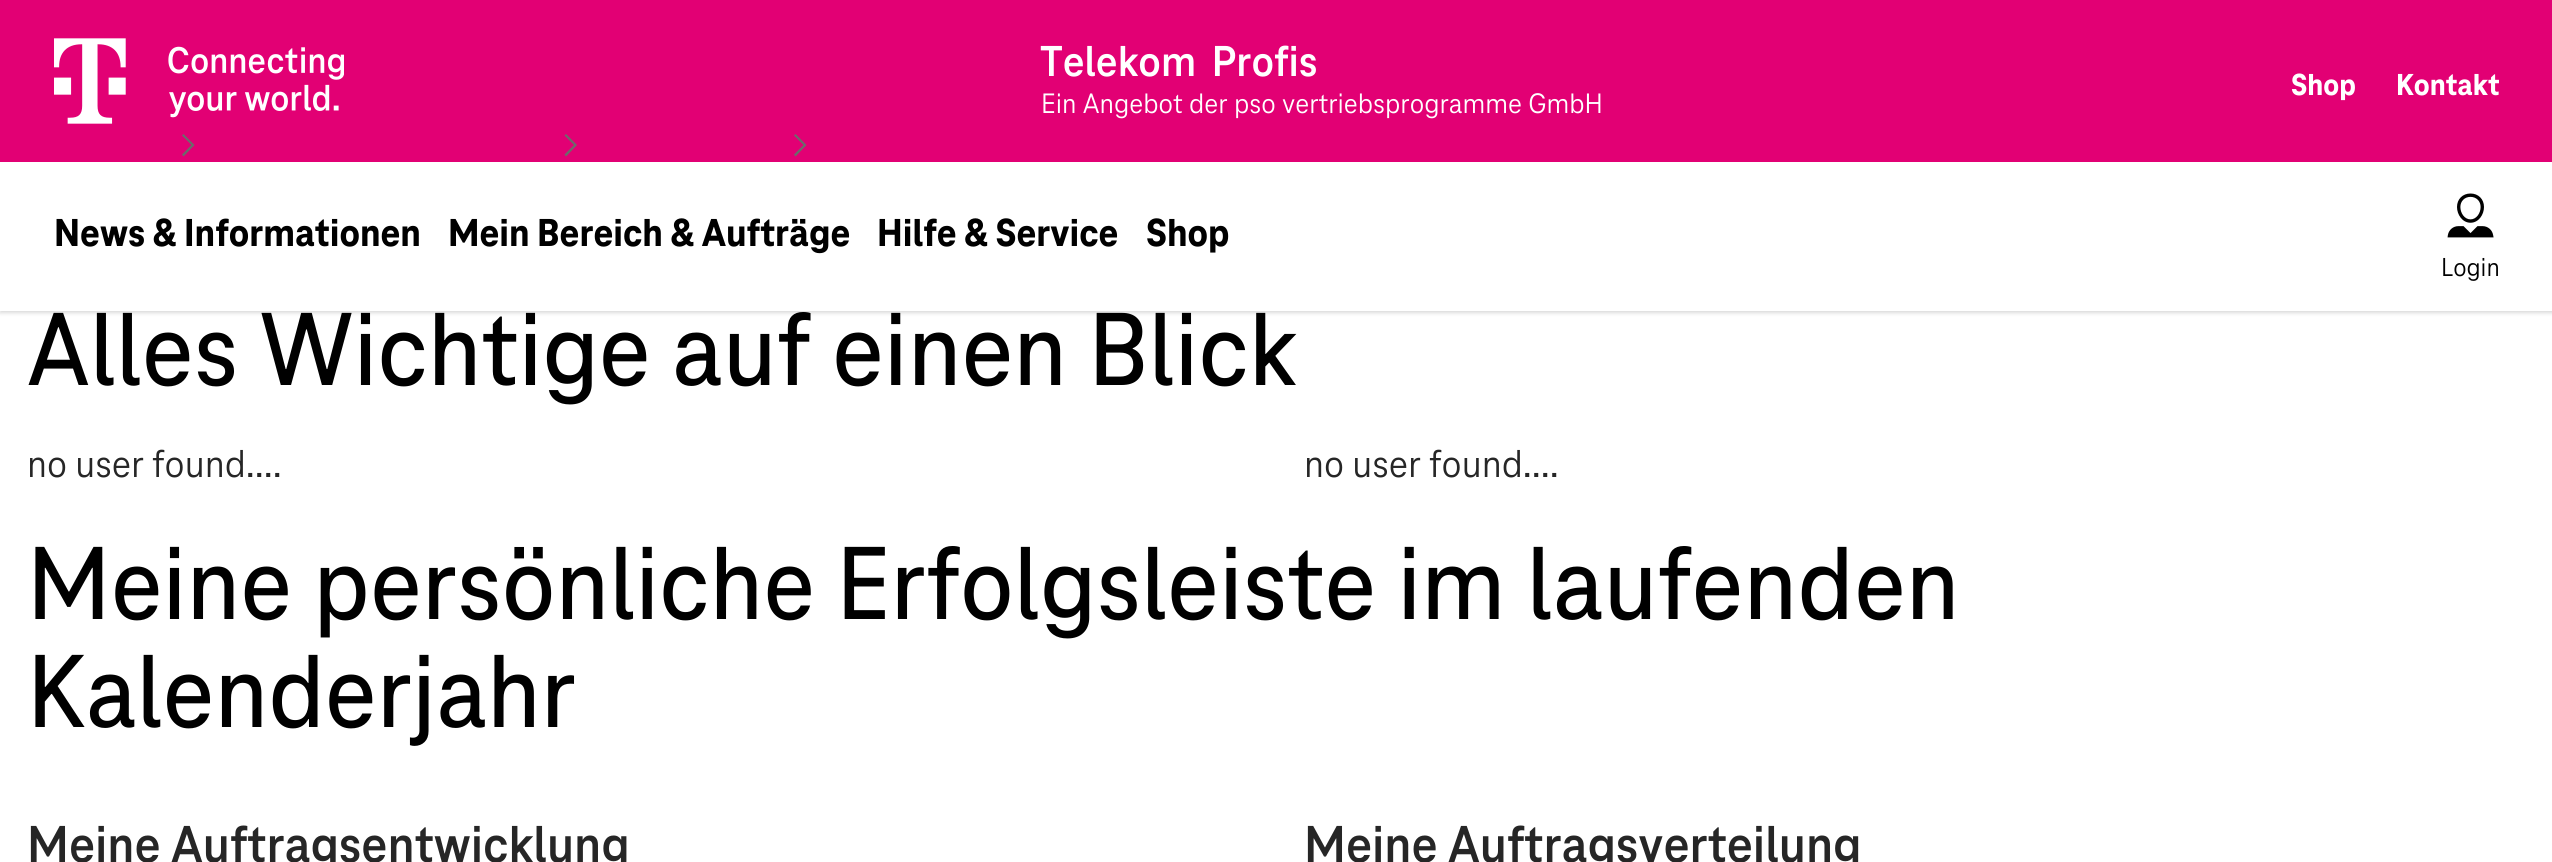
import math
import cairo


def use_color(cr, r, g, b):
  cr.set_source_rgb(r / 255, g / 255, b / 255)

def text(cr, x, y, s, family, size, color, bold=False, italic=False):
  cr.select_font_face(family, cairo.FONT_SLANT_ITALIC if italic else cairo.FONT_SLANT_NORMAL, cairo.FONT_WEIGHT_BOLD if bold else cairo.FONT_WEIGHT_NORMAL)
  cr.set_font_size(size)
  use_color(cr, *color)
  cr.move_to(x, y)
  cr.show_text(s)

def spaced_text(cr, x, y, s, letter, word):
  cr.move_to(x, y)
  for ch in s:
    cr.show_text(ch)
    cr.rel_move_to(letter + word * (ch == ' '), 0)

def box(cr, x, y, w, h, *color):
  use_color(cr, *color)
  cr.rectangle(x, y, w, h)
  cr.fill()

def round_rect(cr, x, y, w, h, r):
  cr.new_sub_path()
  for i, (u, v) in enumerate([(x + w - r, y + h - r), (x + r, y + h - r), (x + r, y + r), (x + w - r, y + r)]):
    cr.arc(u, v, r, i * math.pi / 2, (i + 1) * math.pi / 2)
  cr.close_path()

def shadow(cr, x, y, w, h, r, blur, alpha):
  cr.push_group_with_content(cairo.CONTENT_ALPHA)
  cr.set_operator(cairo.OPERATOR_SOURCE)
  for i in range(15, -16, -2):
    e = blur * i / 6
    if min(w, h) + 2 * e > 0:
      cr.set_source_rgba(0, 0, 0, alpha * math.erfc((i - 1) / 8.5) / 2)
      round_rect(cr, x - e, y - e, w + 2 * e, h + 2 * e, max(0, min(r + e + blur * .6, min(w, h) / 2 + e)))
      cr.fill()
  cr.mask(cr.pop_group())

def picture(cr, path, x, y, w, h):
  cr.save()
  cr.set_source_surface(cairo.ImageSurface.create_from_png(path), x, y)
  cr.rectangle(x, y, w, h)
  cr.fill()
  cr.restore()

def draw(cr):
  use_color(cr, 255, 255, 255)
  cr.paint()
  use_color(cr, 0, 0, 0)
  shadow(cr, 0, 164, 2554, 149, 0, 2, 0.15)
  box(cr, 0, 0, 2552, 162, 226, 0, 116)
  picture(cr, "img_01.png", 54, 38, 290, 86)
  box(cr, 0, 162, 2552, 149, 255, 255, 255)
  picture(cr, "img_02.png", 2447, 193, 47, 45)
  use_color(cr, 107, 107, 107)
  cr.set_fill_rule(cairo.FILL_RULE_EVEN_ODD)
  cr.new_path()
  cr.move_to(194.5, 145)
  cr.line_to(183.5, 156.5)
  cr.line_to(182, 154.5)
  cr.line_to(191.5, 145)
  cr.line_to(182, 135.5)
  cr.line_to(183.5, 134)
  cr.close_path()
  cr.fill()
  cr.new_path()
  cr.move_to(577, 145)
  cr.line_to(566, 156.5)
  cr.line_to(564.5, 154.5)
  cr.line_to(574, 145)
  cr.line_to(564.5, 135.5)
  cr.line_to(566, 134)
  cr.close_path()
  cr.fill()
  cr.new_path()
  cr.move_to(806.5, 145)
  cr.line_to(795.5, 156.5)
  cr.line_to(794, 154.5)
  cr.line_to(803.5, 145)
  cr.line_to(794, 135.5)
  cr.line_to(795.5, 134)
  cr.close_path()
  cr.fill()
  cr.select_font_face("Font", cairo.FONT_SLANT_NORMAL, cairo.FONT_WEIGHT_BOLD)
  cr.set_font_size(45)
  use_color(cr, 255, 255, 255)
  spaced_text(cr, 1040, 76, "Telekom Profis", 0, 7)
  cr.select_font_face("Font")
  cr.set_font_size(29.25)
  spaced_text(cr, 1041, 113, "Ein Angebot der pso vertriebsprogramme GmbH", 0, 0.5)
  text(cr, 2291, 95, "Shop", "Font ExtraBold", 31.5, (255, 255, 255))
  text(cr, 2396, 95, "Kontakt", "Font ExtraBold", 31.5, (255, 255, 255))
  text(cr, 54, 246, "News & Informationen", "Font ExtraBold", 40.5, (0, 0, 0))
  text(cr, 448, 246, "Mein Bereich & Aufträge", "Font ExtraBold", 40.5, (0, 0, 0))
  text(cr, 877, 246, "Hilfe & Service", "Font ExtraBold", 40.5, (0, 0, 0))
  text(cr, 1146, 246, "Shop", "Font ExtraBold", 40.5, (0, 0, 0))
  text(cr, 2441, 276, "Login", "Font", 27, (0, 0, 0))
  text(cr, 27, 385, "Alles Wichtige auf einen Blick", "Font Medium", 108, (0, 0, 0))
  text(cr, 27, 477, "no user found....", "Font", 40.5, (38, 38, 38))
  text(cr, 1304, 477, "no user found....", "Font", 40.5, (38, 38, 38))
  text(cr, 27, 619, "Meine persönliche Erfolgsleiste im laufenden", "Font Medium", 108, (0, 0, 0))
  text(cr, 27, 727, "Kalenderjahr", "Font Medium", 108, (0, 0, 0))
  text(cr, 27, 862, "Meine Auftragsentwicklung", "Font", 54, (38, 38, 38), bold=True)
  text(cr, 1304, 862, "Meine Auftragsverteilung", "Font", 54, (38, 38, 38), bold=True)


surface = cairo.ImageSurface(cairo.FORMAT_RGB24, 2552, 862)
cr = cairo.Context(surface)
options = cairo.FontOptions()
options.set_hint_metrics(cairo.HINT_METRICS_OFF)
options.set_hint_style(cairo.HINT_STYLE_NONE)
cr.set_font_options(options)
cr.set_miter_limit(4)
draw(cr)
surface.write_to_png("out.png")
